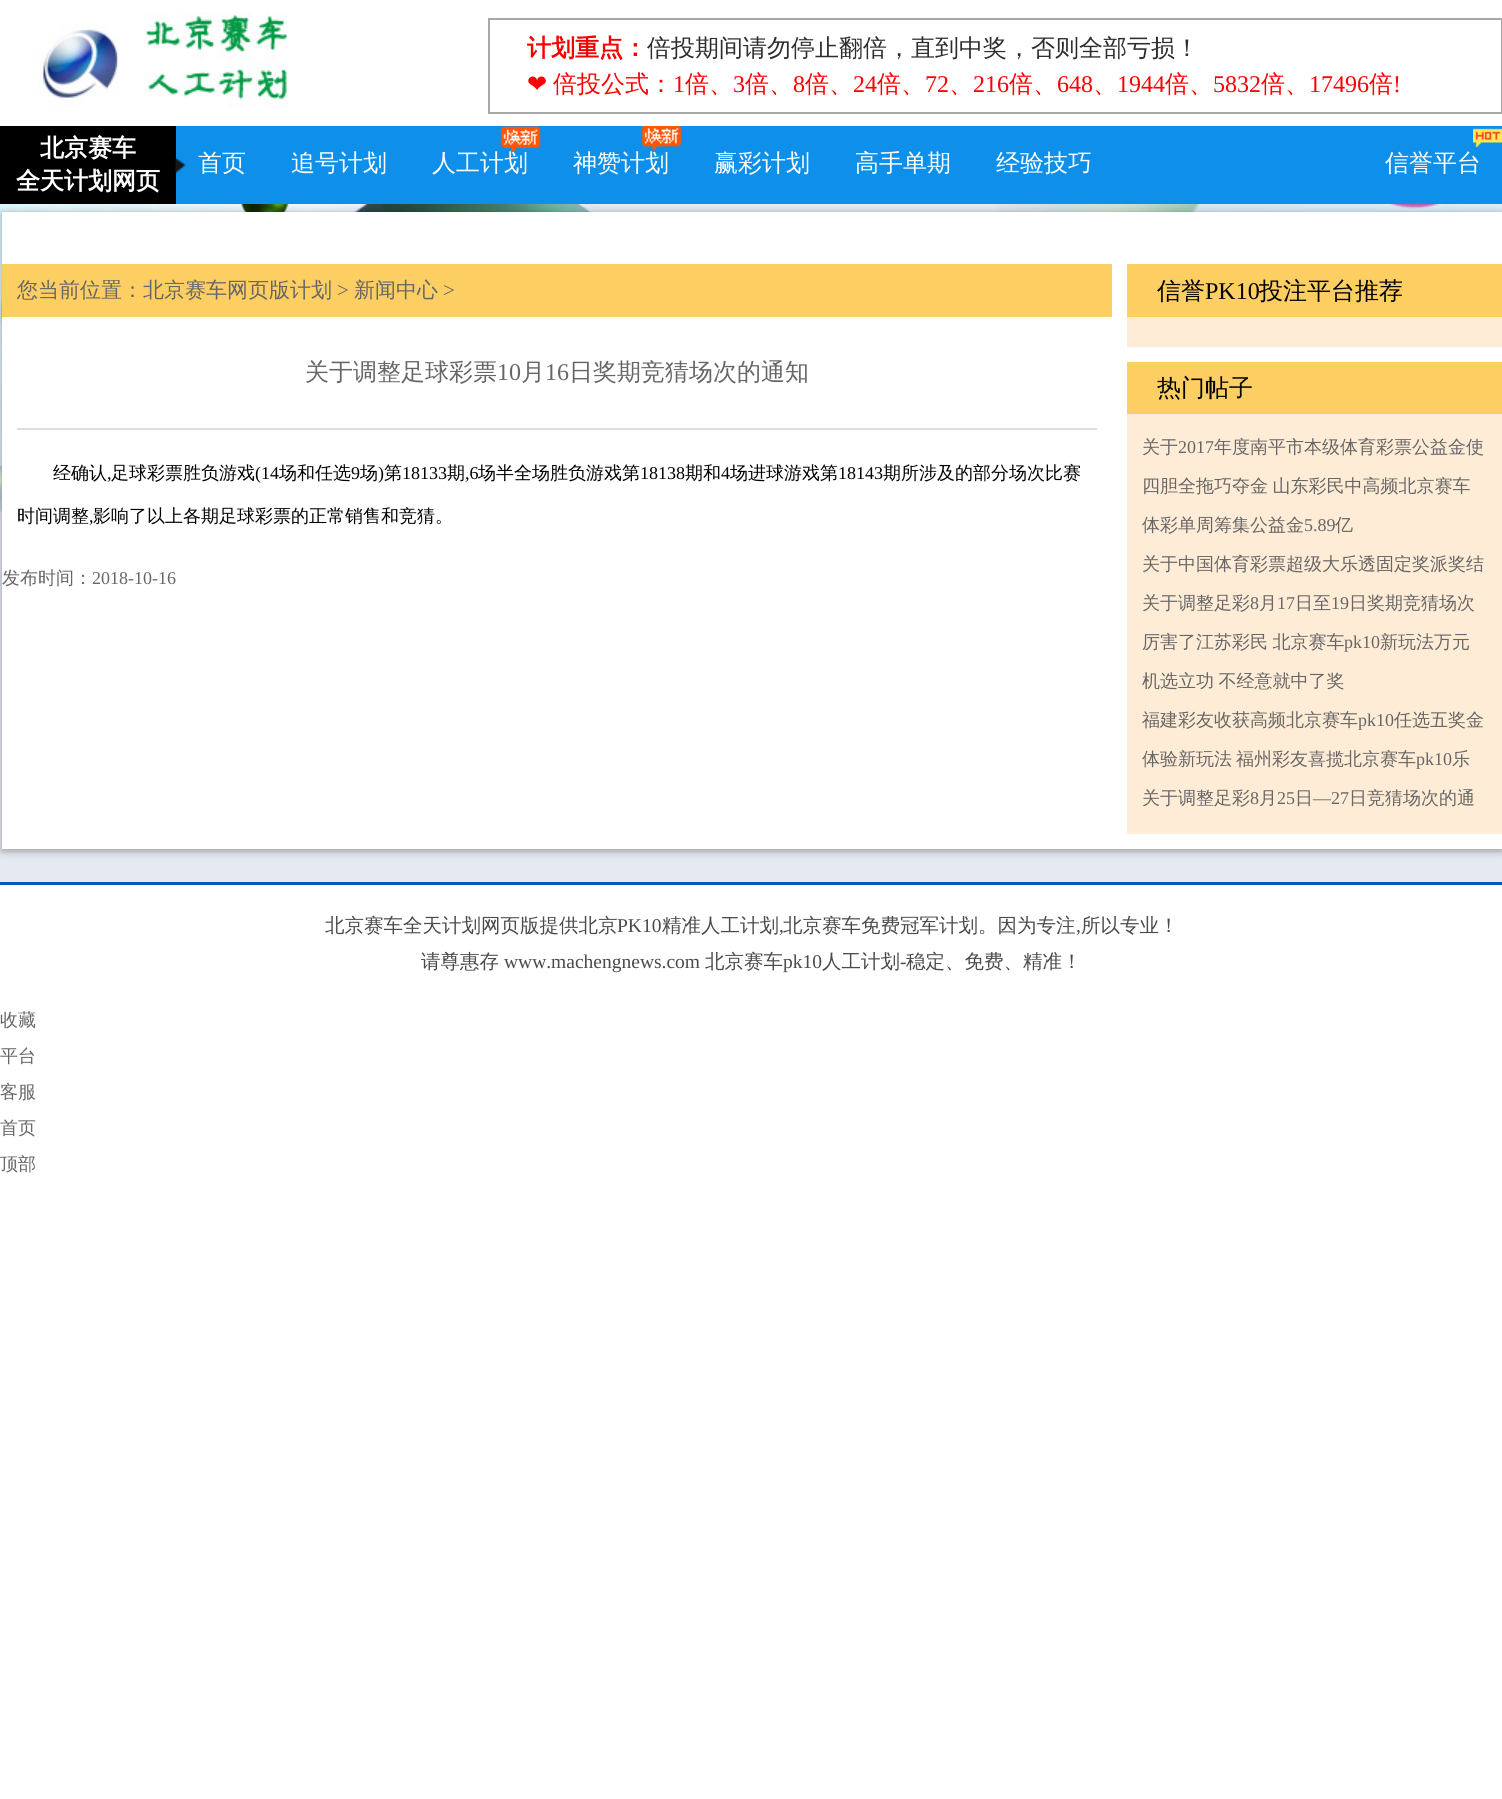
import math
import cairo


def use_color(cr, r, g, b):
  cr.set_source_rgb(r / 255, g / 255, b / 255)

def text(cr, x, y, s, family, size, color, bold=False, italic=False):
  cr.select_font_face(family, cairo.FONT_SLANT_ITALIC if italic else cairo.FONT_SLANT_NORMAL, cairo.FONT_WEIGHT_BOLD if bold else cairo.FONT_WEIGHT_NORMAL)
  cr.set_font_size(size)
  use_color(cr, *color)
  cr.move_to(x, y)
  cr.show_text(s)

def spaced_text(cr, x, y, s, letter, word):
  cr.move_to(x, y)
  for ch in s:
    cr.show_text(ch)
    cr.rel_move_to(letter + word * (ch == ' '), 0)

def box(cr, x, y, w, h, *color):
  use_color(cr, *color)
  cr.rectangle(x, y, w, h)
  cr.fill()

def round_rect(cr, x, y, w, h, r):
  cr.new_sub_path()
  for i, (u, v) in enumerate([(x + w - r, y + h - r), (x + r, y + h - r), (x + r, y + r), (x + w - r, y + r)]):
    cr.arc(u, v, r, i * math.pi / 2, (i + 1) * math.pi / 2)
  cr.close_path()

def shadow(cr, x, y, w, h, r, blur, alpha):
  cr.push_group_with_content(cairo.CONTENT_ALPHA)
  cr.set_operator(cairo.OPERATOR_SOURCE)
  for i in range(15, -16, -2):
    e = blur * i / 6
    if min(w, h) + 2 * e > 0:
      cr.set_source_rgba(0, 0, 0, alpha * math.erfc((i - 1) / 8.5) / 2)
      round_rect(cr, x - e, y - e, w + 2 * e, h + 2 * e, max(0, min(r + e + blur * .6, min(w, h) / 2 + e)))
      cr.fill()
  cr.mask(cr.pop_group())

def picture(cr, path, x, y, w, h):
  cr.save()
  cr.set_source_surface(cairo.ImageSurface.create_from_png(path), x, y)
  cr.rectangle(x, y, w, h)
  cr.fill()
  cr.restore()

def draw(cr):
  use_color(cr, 255, 255, 255)
  cr.paint()
  picture(cr, "img_01.png", 38, 12, 250, 96)
  cr.rectangle(489, 19, 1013, 94)
  use_color(cr, 168, 168, 168)
  cr.stroke()
  box(cr, 176, 126, 1326, 78, 13, 143, 234)
  box(cr, 0, 751, 1502, 131, 229, 233, 241)
  picture(cr, "img_06.png", 0, 204, 1502, 547)
  use_color(cr, 0, 0, 0)
  shadow(cr, 2, 213, 1500, 638, 0, 4, 0.35)
  box(cr, 0, 126, 176, 78, 0, 0, 0)
  picture(cr, "img_02.png", 175, 157, 11, 17)
  picture(cr, "img_03.png", 500, 126, 41, 27)
  picture(cr, "img_04.png", 641, 126, 41, 25)
  picture(cr, "img_05.png", 1473, 128, 29, 19)
  box(cr, 2, 212, 1500, 637, 255, 255, 255)
  box(cr, 2, 264, 1110, 53, 253, 206, 98)
  box(cr, 17, 428, 1080, 2, 221, 221, 221)
  box(cr, 1127, 317, 375, 30, 255, 236, 214)
  box(cr, 1127, 264, 375, 53, 253, 206, 98)
  box(cr, 1127, 414, 375, 420, 255, 236, 214)
  box(cr, 1127, 362, 375, 52, 253, 206, 98)
  box(cr, 0, 882, 1502, 3, 0, 92, 186)
  text(cr, 527, 56, "计划重点：", "WenQuanYi Zen Hei", 24, (247, 0, 0), bold=True)
  text(cr, 647, 56, "倍投期间请勿停止翻倍，直到中奖，否则全部亏损！", "WenQuanYi Zen Hei Medium", 24, (45, 45, 45))
  text(cr, 527, 92, "❤", "DejaVu Sans", 24, (255, 0, 0))
  text(cr, 553, 92, "倍投公式：", "WenQuanYi Zen Hei Medium", 24, (255, 0, 0))
  text(cr, 673, 92, "1", "Liberation Serif", 24, (255, 0, 0))
  text(cr, 685, 92, "倍、", "WenQuanYi Zen Hei Medium", 24, (255, 0, 0))
  text(cr, 733, 92, "3", "Liberation Serif", 24, (255, 0, 0))
  text(cr, 745, 92, "倍、", "WenQuanYi Zen Hei Medium", 24, (255, 0, 0))
  text(cr, 793, 92, "8", "Liberation Serif", 24, (255, 0, 0))
  text(cr, 805, 92, "倍、", "WenQuanYi Zen Hei Medium", 24, (255, 0, 0))
  text(cr, 853, 92, "24", "Liberation Serif", 24, (255, 0, 0))
  text(cr, 877, 92, "倍、", "WenQuanYi Zen Hei Medium", 24, (255, 0, 0))
  text(cr, 925, 92, "72", "Liberation Serif", 24, (255, 0, 0))
  text(cr, 949, 92, "、", "WenQuanYi Zen Hei Medium", 24, (255, 0, 0))
  text(cr, 973, 92, "216", "Liberation Serif", 24, (255, 0, 0))
  text(cr, 1009, 92, "倍、", "WenQuanYi Zen Hei Medium", 24, (255, 0, 0))
  text(cr, 1057, 92, "648", "Liberation Serif", 24, (255, 0, 0))
  text(cr, 1093, 92, "、", "WenQuanYi Zen Hei Medium", 24, (255, 0, 0))
  text(cr, 1117, 92, "1944", "Liberation Serif", 24, (255, 0, 0))
  text(cr, 1165, 92, "倍、", "WenQuanYi Zen Hei Medium", 24, (255, 0, 0))
  text(cr, 1213, 92, "5832", "Liberation Serif", 24, (255, 0, 0))
  text(cr, 1261, 92, "倍、", "WenQuanYi Zen Hei Medium", 24, (255, 0, 0))
  text(cr, 1309, 92, "17496", "Liberation Serif", 24, (255, 0, 0))
  text(cr, 1369, 92, "倍", "WenQuanYi Zen Hei Medium", 24, (255, 0, 0))
  text(cr, 1393, 92, "!", "Liberation Serif", 24, (255, 0, 0))
  text(cr, 40, 156, "北京赛车", "WenQuanYi Zen Hei", 24, (255, 255, 255), bold=True)
  text(cr, 16, 189, "全天计划网页", "WenQuanYi Zen Hei", 24, (255, 255, 255), bold=True)
  text(cr, 198, 171, "首页", "WenQuanYi Zen Hei Medium", 24, (255, 255, 255))
  text(cr, 291, 171, "追号计划", "WenQuanYi Zen Hei Medium", 24, (255, 255, 255))
  text(cr, 432, 171, "人工计划", "WenQuanYi Zen Hei Medium", 24, (255, 255, 255))
  text(cr, 573, 171, "神赞计划", "WenQuanYi Zen Hei Medium", 24, (255, 255, 255))
  text(cr, 714, 171, "赢彩计划", "WenQuanYi Zen Hei Medium", 24, (255, 255, 255))
  text(cr, 855, 171, "高手单期", "WenQuanYi Zen Hei Medium", 24, (255, 255, 255))
  text(cr, 996, 171, "经验技巧", "WenQuanYi Zen Hei Medium", 24, (255, 255, 255))
  text(cr, 1385, 171, "信誉平台", "WenQuanYi Zen Hei Medium", 24, (255, 255, 255))
  text(cr, 17, 297, "您当前位置：北京赛车网页版计划", "WenQuanYi Zen Hei Medium", 21, (102, 102, 102))
  text(cr, 337, 297, ">", "Liberation Serif", 21, (102, 102, 102))
  text(cr, 354, 297, "新闻中心", "WenQuanYi Zen Hei Medium", 21, (102, 102, 102))
  text(cr, 443, 297, ">", "Liberation Serif", 21, (102, 102, 102))
  text(cr, 305, 380, "关于调整足球彩票", "WenQuanYi Zen Hei Medium", 24, (102, 102, 102))
  text(cr, 497, 380, "10", "Liberation Serif", 24, (102, 102, 102))
  text(cr, 521, 380, "月", "WenQuanYi Zen Hei Medium", 24, (102, 102, 102))
  text(cr, 545, 380, "16", "Liberation Serif", 24, (102, 102, 102))
  text(cr, 569, 380, "日奖期竞猜场次的通知", "WenQuanYi Zen Hei Medium", 24, (102, 102, 102))
  text(cr, 53, 479, "经确认", "WenQuanYi Zen Hei Medium", 18, (0, 0, 0))
  text(cr, 107, 479, ",", "Liberation Serif", 18, (0, 0, 0))
  text(cr, 111, 479, "足球彩票胜负游戏", "WenQuanYi Zen Hei Medium", 18, (0, 0, 0))
  text(cr, 255, 479, "(14", "Liberation Serif", 18, (0, 0, 0))
  text(cr, 279, 479, "场和任选", "WenQuanYi Zen Hei Medium", 18, (0, 0, 0))
  text(cr, 351, 479, "9", "Liberation Serif", 18, (0, 0, 0))
  text(cr, 360, 479, "场", "WenQuanYi Zen Hei Medium", 18, (0, 0, 0))
  text(cr, 378, 479, ")", "Liberation Serif", 18, (0, 0, 0))
  text(cr, 384, 479, "第", "WenQuanYi Zen Hei Medium", 18, (0, 0, 0))
  text(cr, 402, 479, "18133", "Liberation Serif", 18, (0, 0, 0))
  text(cr, 447, 479, "期", "WenQuanYi Zen Hei Medium", 18, (0, 0, 0))
  text(cr, 465, 479, ",6", "Liberation Serif", 18, (0, 0, 0))
  text(cr, 478, 479, "场半全场胜负游戏第", "WenQuanYi Zen Hei Medium", 18, (0, 0, 0))
  text(cr, 640, 479, "18138", "Liberation Serif", 18, (0, 0, 0))
  text(cr, 685, 479, "期和", "WenQuanYi Zen Hei Medium", 18, (0, 0, 0))
  text(cr, 721, 479, "4", "Liberation Serif", 18, (0, 0, 0))
  text(cr, 730, 479, "场进球游戏第", "WenQuanYi Zen Hei Medium", 18, (0, 0, 0))
  text(cr, 838, 479, "18143", "Liberation Serif", 18, (0, 0, 0))
  text(cr, 883, 479, "期所涉及的部分场次比赛", "WenQuanYi Zen Hei Medium", 18, (0, 0, 0))
  text(cr, 17, 522, "时间调整", "WenQuanYi Zen Hei Medium", 18, (0, 0, 0))
  text(cr, 89, 522, ",", "Liberation Serif", 18, (0, 0, 0))
  text(cr, 93, 522, "影响了以上各期足球彩票的正常销售和竞猜。", "WenQuanYi Zen Hei Medium", 18, (0, 0, 0))
  text(cr, 2, 584, "发布时间：", "WenQuanYi Zen Hei Medium", 18, (102, 102, 102))
  text(cr, 92, 584, "2018-10-16", "Liberation Serif", 18, (102, 102, 102))
  text(cr, 1157, 299, "信誉", "WenQuanYi Zen Hei Medium", 24, (0, 0, 0))
  text(cr, 1205, 299, "PK10", "Liberation Serif", 24, (0, 0, 0))
  text(cr, 1259, 299, "投注平台推荐", "WenQuanYi Zen Hei Medium", 24, (0, 0, 0))
  text(cr, 1157, 396, "热门帖子", "WenQuanYi Zen Hei Medium", 24, (0, 0, 0))
  text(cr, 1142, 453, "关于", "WenQuanYi Zen Hei Medium", 18, (102, 102, 102))
  text(cr, 1178, 453, "2017", "Liberation Serif", 18, (102, 102, 102))
  text(cr, 1214, 453, "年度南平市本级体育彩票公益金使", "WenQuanYi Zen Hei Medium", 18, (102, 102, 102))
  spaced_text(cr, 1142, 492, "四胆全拖巧夺金 山东彩民中高频北京赛车", 0, -1)
  text(cr, 1142, 531, "体彩单周筹集公益金", "WenQuanYi Zen Hei Medium", 18, (102, 102, 102))
  text(cr, 1304, 531, "5.89", "Liberation Serif", 18, (102, 102, 102))
  text(cr, 1335, 531, "亿", "WenQuanYi Zen Hei Medium", 18, (102, 102, 102))
  text(cr, 1142, 570, "关于中国体育彩票超级大乐透固定奖派奖结", "WenQuanYi Zen Hei Medium", 18, (102, 102, 102))
  text(cr, 1142, 609, "关于调整足彩", "WenQuanYi Zen Hei Medium", 18, (102, 102, 102))
  text(cr, 1250, 609, "8", "Liberation Serif", 18, (102, 102, 102))
  text(cr, 1259, 609, "月", "WenQuanYi Zen Hei Medium", 18, (102, 102, 102))
  text(cr, 1277, 609, "17", "Liberation Serif", 18, (102, 102, 102))
  text(cr, 1295, 609, "日至", "WenQuanYi Zen Hei Medium", 18, (102, 102, 102))
  text(cr, 1331, 609, "19", "Liberation Serif", 18, (102, 102, 102))
  text(cr, 1349, 609, "日奖期竞猜场次", "WenQuanYi Zen Hei Medium", 18, (102, 102, 102))
  spaced_text(cr, 1142, 648, "厉害了江苏彩民 北京赛车", 0, -1)
  text(cr, 1344, 648, "pk10", "Liberation Serif", 18, (102, 102, 102))
  text(cr, 1380, 648, "新玩法万元", "WenQuanYi Zen Hei Medium", 18, (102, 102, 102))
  spaced_text(cr, 1142, 687, "机选立功 不经意就中了奖", 0, -1)
  text(cr, 1142, 726, "福建彩友收获高频北京赛车", "WenQuanYi Zen Hei Medium", 18, (102, 102, 102))
  text(cr, 1358, 726, "pk10", "Liberation Serif", 18, (102, 102, 102))
  text(cr, 1394, 726, "任选五奖金", "WenQuanYi Zen Hei Medium", 18, (102, 102, 102))
  text(cr, 1142, 765, "体验新玩法", "WenQuanYi Zen Hei Medium", 18, (102, 102, 102))
  text(cr, 1236, 765, "福州彩友喜揽北京赛车", "WenQuanYi Zen Hei Medium", 18, (102, 102, 102))
  text(cr, 1416, 765, "pk10", "Liberation Serif", 18, (102, 102, 102))
  text(cr, 1452, 765, "乐", "WenQuanYi Zen Hei Medium", 18, (102, 102, 102))
  text(cr, 1142, 804, "关于调整足彩", "WenQuanYi Zen Hei Medium", 18, (102, 102, 102))
  text(cr, 1250, 804, "8", "Liberation Serif", 18, (102, 102, 102))
  text(cr, 1259, 804, "月", "WenQuanYi Zen Hei Medium", 18, (102, 102, 102))
  text(cr, 1277, 804, "25", "Liberation Serif", 18, (102, 102, 102))
  text(cr, 1295, 804, "日", "WenQuanYi Zen Hei Medium", 18, (102, 102, 102))
  text(cr, 1313, 804, "—27", "Liberation Serif", 18, (102, 102, 102))
  text(cr, 1349, 804, "日竞猜场次的通", "WenQuanYi Zen Hei Medium", 18, (102, 102, 102))
  text(cr, 325, 932, "北京赛车全天计划网页版提供北京", "WenQuanYi Zen Hei Medium", 19.5, (74, 74, 74))
  text(cr, 617, 932, "PK10", "Liberation Serif", 19.5, (74, 74, 74))
  text(cr, 662, 932, "精准人工计划", "WenQuanYi Zen Hei Medium", 19.5, (74, 74, 74))
  text(cr, 779, 932, ",", "Liberation Serif", 19.5, (74, 74, 74))
  text(cr, 783, 932, "北京赛车免费冠军计划。因为专注", "WenQuanYi Zen Hei Medium", 19.5, (74, 74, 74))
  text(cr, 1076, 932, ",", "Liberation Serif", 19.5, (74, 74, 74))
  text(cr, 1081, 932, "所以专业！", "WenQuanYi Zen Hei Medium", 19.5, (74, 74, 74))
  text(cr, 421, 968, "请尊惠存", "WenQuanYi Zen Hei Medium", 19.5, (74, 74, 74))
  text(cr, 504, 968, "www.machengnews.com", "Liberation Serif", 19.5, (74, 74, 74))
  text(cr, 705, 968, "北京赛车", "WenQuanYi Zen Hei Medium", 19.5, (74, 74, 74))
  text(cr, 783, 968, "pk10", "Liberation Serif", 19.5, (74, 74, 74))
  text(cr, 822, 968, "人工计划", "WenQuanYi Zen Hei Medium", 19.5, (74, 74, 74))
  text(cr, 900, 968, "-", "Liberation Serif", 19.5, (74, 74, 74))
  text(cr, 906, 968, "稳定、免费、精准！", "WenQuanYi Zen Hei Medium", 19.5, (74, 74, 74))
  text(cr, 0, 1026, "收藏", "WenQuanYi Zen Hei Medium", 18, (102, 102, 102))
  text(cr, 0, 1062, "平台", "WenQuanYi Zen Hei Medium", 18, (102, 102, 102))
  text(cr, 0, 1098, "客服", "WenQuanYi Zen Hei Medium", 18, (102, 102, 102))
  text(cr, 0, 1134, "首页", "WenQuanYi Zen Hei Medium", 18, (102, 102, 102))
  text(cr, 0, 1170, "顶部", "WenQuanYi Zen Hei Medium", 18, (102, 102, 102))


surface = cairo.ImageSurface(cairo.FORMAT_RGB24, 1502, 1799)
cr = cairo.Context(surface)
options = cairo.FontOptions()
options.set_hint_metrics(cairo.HINT_METRICS_OFF)
options.set_hint_style(cairo.HINT_STYLE_NONE)
cr.set_font_options(options)
cr.set_miter_limit(4)
draw(cr)
surface.write_to_png("out.png")
